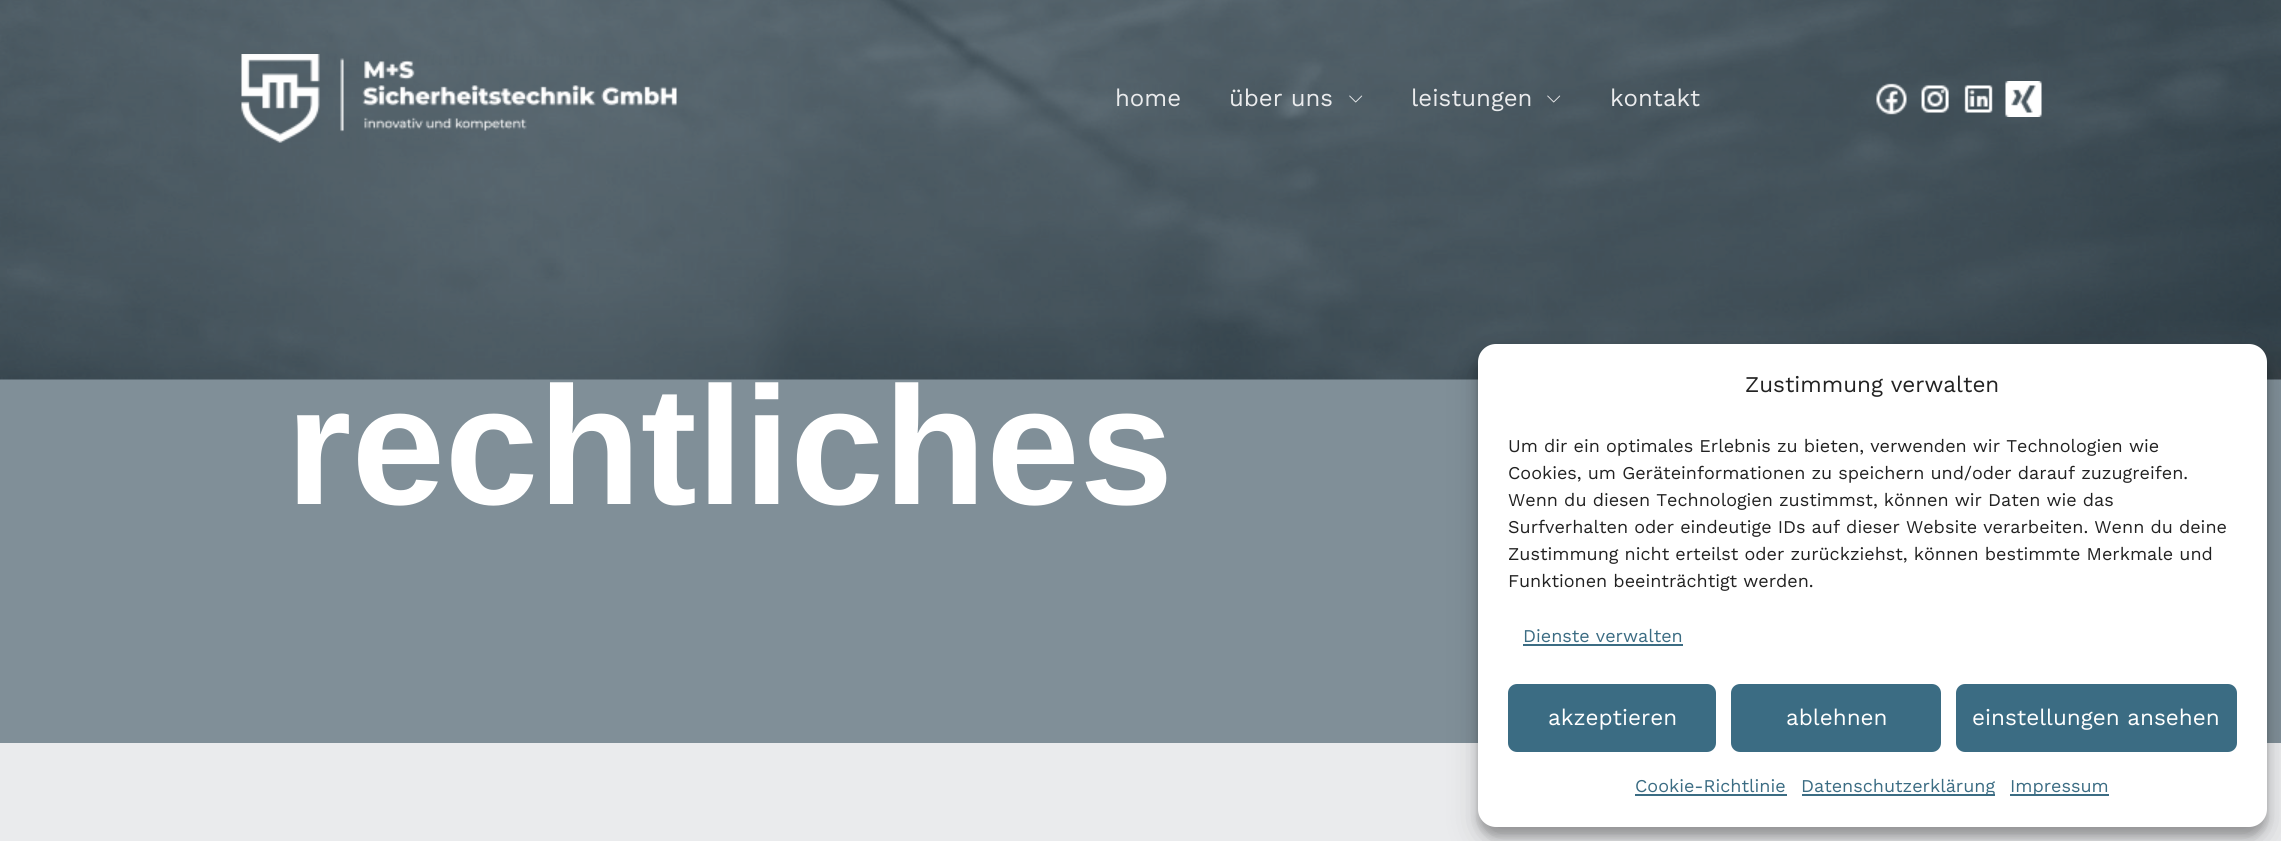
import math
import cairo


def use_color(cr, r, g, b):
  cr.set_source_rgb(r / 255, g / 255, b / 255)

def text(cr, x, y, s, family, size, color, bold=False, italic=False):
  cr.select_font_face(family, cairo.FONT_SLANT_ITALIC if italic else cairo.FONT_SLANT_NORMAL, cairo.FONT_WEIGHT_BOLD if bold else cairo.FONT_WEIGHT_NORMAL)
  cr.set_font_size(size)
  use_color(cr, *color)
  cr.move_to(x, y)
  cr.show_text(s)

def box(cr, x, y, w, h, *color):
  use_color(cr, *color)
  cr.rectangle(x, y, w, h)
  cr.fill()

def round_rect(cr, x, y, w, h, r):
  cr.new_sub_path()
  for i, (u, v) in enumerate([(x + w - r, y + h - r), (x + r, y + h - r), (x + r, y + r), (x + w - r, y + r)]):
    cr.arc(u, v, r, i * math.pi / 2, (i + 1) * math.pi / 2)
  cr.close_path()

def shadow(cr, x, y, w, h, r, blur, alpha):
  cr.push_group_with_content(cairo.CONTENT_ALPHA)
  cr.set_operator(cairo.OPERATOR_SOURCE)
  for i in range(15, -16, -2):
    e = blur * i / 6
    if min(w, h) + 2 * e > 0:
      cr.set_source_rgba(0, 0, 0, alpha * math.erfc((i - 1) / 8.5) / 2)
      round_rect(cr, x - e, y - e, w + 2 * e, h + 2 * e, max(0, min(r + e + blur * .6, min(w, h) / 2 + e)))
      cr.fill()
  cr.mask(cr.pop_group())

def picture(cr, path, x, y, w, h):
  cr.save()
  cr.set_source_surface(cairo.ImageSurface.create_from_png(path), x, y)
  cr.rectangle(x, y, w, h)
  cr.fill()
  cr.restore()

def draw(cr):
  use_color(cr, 234, 235, 237)
  cr.paint()
  box(cr, 0, 379, 2281, 364, 128, 143, 152)
  picture(cr, "img_08.png", 0, 0, 2281, 380)
  picture(cr, "img_01.png", 241, 54, 436, 89)
  picture(cr, "img_02.png", 1349, 95, 14, 8)
  picture(cr, "img_03.png", 1547, 95, 14, 8)
  picture(cr, "img_04.png", 1876, 83, 31, 32)
  picture(cr, "img_05.png", 1921, 85, 28, 28)
  picture(cr, "img_06.png", 1964, 85, 29, 28)
  picture(cr, "img_07.png", 2005, 81, 37, 36)
  use_color(cr, 0, 0, 0)
  shadow(cr, 1478, 353, 789, 483, 18, 4.5, 0.23)
  shadow(cr, 1478, 359, 789, 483, 18, 15, 0.19)
  use_color(cr, 255, 255, 255)
  round_rect(cr, 1478, 344, 789, 483, 18)
  cr.fill()
  box(cr, 1523, 644, 160, 2, 59, 108, 131)
  round_rect(cr, 1509, 685, 206, 66, 8)
  cr.fill_preserve()
  cr.stroke()
  round_rect(cr, 1732, 685, 208, 66, 8)
  cr.fill_preserve()
  cr.stroke()
  round_rect(cr, 1957, 685, 279, 66, 8)
  cr.fill_preserve()
  cr.stroke()
  box(cr, 1635, 794, 152, 2, 59, 108, 131)
  box(cr, 1802, 794, 193, 2, 59, 108, 131)
  box(cr, 2010, 794, 99, 2, 59, 108, 131)
  text(cr, 1115, 106, "home", "Work Sans", 24, (234, 235, 237))
  text(cr, 1229, 106, "über uns", "Work Sans", 24, (234, 235, 237))
  text(cr, 1411, 106, "leistungen", "Work Sans", 24, (234, 235, 237))
  text(cr, 1610, 106, "kontakt", "Work Sans", 24, (234, 235, 237))
  text(cr, 286, 504, "rechtliches", "Liberation Sans", 168, (255, 255, 255), bold=True)
  text(cr, 1745, 392, "Zustimmung verwalten", "Work Sans", 22.5, (34, 34, 34))
  text(cr, 1508, 452, "Um dir ein optimales Erlebnis zu bieten, verwenden wir Technologien wie", "Work Sans", 18, (34, 34, 34))
  text(cr, 1508, 479, "Cookies, um Geräteinformationen zu speichern und/oder darauf zuzugreifen.", "Work Sans", 18, (34, 34, 34))
  text(cr, 1508, 506, "Wenn du diesen Technologien zustimmst, können wir Daten wie das", "Work Sans", 18, (34, 34, 34))
  text(cr, 1508, 533, "Surfverhalten oder eindeutige IDs auf dieser Website verarbeiten. Wenn du deine", "Work Sans", 18, (34, 34, 34))
  text(cr, 1508, 560, "Zustimmung nicht erteilst oder zurückziehst, können bestimmte Merkmale und", "Work Sans", 18, (34, 34, 34))
  text(cr, 1508, 587, "Funktionen beeinträchtigt werden.", "Work Sans", 18, (34, 34, 34))
  text(cr, 1523, 642, "Dienste verwalten", "Work Sans", 18, (59, 108, 131))
  text(cr, 1548, 725, "akzeptieren", "Work Sans", 22.5, (255, 255, 255))
  text(cr, 1786, 725, "ablehnen", "Work Sans", 22.5, (255, 255, 255))
  text(cr, 1972, 725, "einstellungen ansehen", "Work Sans", 22.5, (255, 255, 255))
  text(cr, 1635, 792, "Cookie-Richtlinie", "Work Sans", 18, (59, 108, 131))
  text(cr, 1801, 792, "Datenschutzerklärung", "Work Sans", 18, (59, 108, 131))
  text(cr, 2010, 792, "Impressum", "Work Sans", 18, (59, 108, 131))


surface = cairo.ImageSurface(cairo.FORMAT_RGB24, 2281, 841)
cr = cairo.Context(surface)
options = cairo.FontOptions()
options.set_hint_metrics(cairo.HINT_METRICS_OFF)
options.set_hint_style(cairo.HINT_STYLE_NONE)
cr.set_font_options(options)
cr.set_miter_limit(4)
draw(cr)
surface.write_to_png("out.png")
